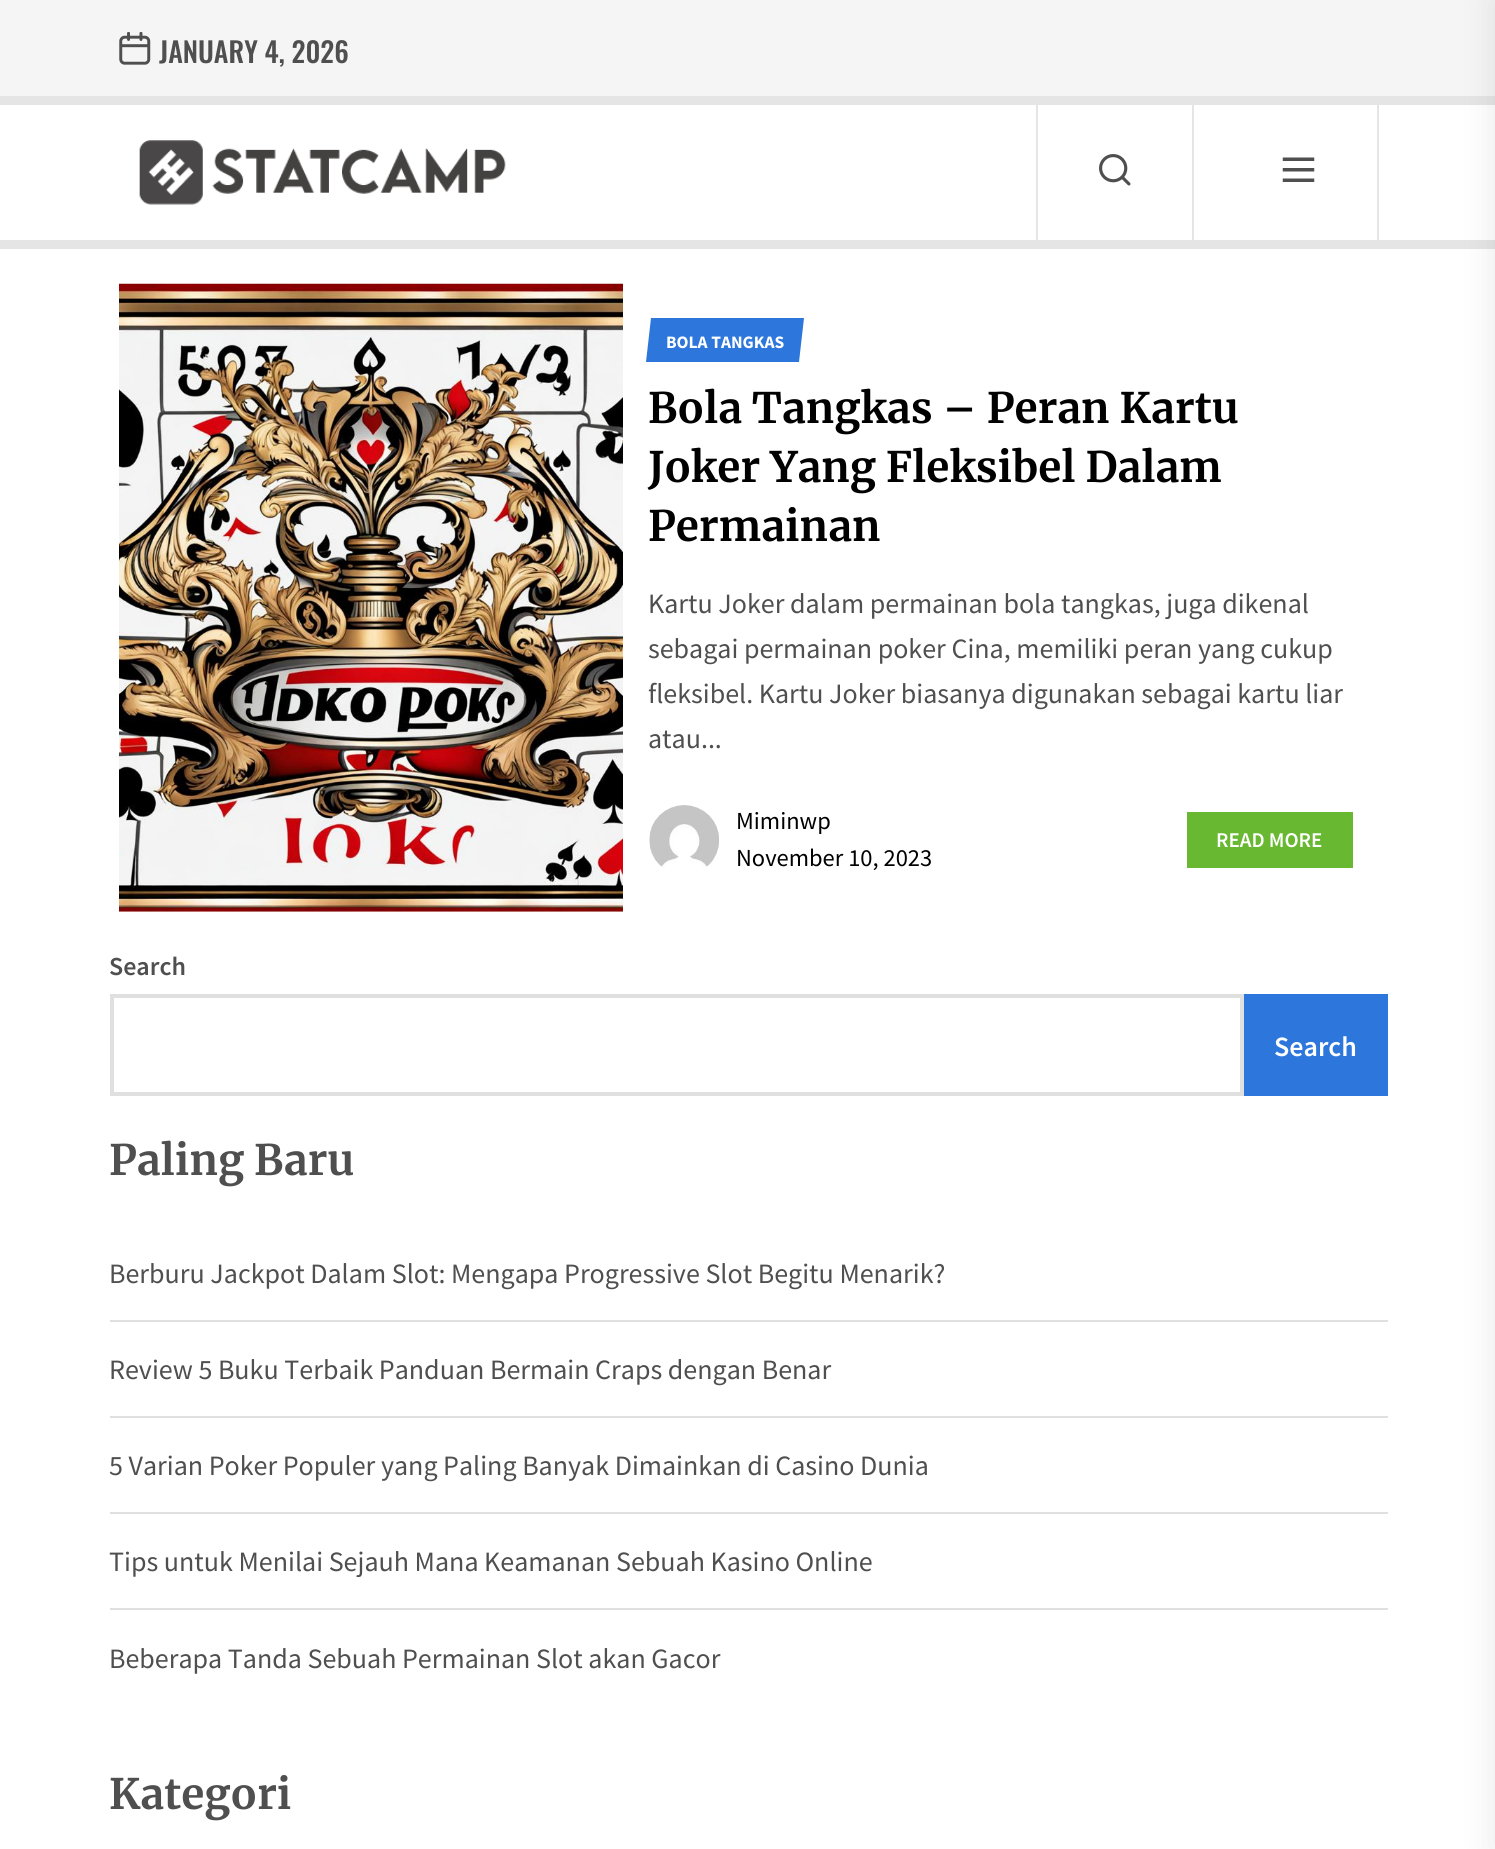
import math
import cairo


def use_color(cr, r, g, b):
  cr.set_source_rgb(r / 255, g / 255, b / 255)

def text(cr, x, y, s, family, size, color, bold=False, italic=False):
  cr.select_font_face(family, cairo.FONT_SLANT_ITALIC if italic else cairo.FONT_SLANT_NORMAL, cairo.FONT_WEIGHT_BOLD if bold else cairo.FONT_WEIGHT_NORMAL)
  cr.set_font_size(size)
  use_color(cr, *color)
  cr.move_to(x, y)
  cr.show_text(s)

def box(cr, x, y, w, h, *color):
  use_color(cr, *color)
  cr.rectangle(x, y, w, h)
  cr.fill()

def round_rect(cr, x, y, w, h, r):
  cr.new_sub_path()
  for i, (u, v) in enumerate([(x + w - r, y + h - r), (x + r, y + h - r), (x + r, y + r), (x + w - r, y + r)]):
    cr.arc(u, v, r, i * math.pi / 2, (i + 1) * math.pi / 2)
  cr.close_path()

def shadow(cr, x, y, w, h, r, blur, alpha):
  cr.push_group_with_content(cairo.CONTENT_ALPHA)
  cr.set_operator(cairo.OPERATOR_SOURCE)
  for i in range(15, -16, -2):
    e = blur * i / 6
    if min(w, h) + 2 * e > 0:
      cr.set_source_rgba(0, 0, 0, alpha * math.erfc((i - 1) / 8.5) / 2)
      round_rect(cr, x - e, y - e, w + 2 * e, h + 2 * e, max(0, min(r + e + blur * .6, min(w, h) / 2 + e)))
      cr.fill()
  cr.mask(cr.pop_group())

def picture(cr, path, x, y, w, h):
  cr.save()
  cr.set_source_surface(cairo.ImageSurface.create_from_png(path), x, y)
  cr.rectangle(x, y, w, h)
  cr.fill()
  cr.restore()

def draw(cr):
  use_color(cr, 255, 255, 255)
  cr.paint()
  box(cr, 0, 0, 1495, 96, 245, 245, 245)
  picture(cr, "img_01.png", 119, 32, 32, 33)
  box(cr, 0, 96, 1495, 9, 229, 229, 229)
  box(cr, 0, 240, 1495, 9, 229, 229, 229)
  picture(cr, "img_02.png", 139, 140, 367, 65)
  box(cr, 1192, 105, 2, 135, 229, 229, 229)
  box(cr, 1036, 105, 2, 135, 229, 229, 229)
  picture(cr, "img_03.png", 1099, 154, 32, 32)
  box(cr, 1377, 105, 2, 135, 229, 229, 229)
  picture(cr, "img_04.png", 1282, 157, 33, 25)
  use_color(cr, 0, 0, 0)
  shadow(cr, 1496, 0, 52, 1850, 0, 17.5, 0.1)
  picture(cr, "img_05.png", 119, 283, 504, 629)
  use_color(cr, 44, 118, 220)
  cr.new_path()
  cr.move_to(651, 318)
  cr.line_to(804, 318)
  cr.line_to(799, 362)
  cr.line_to(646, 362)
  cr.close_path()
  cr.fill()
  picture(cr, "img_06.png", 649, 805, 70, 63)
  box(cr, 1187, 812, 166, 56, 104, 184, 50)
  cr.rectangle(112, 996, 1130, 98)
  use_color(cr, 224, 224, 224)
  cr.set_line_width(4)
  cr.stroke()
  box(cr, 1244, 994, 144, 102, 44, 118, 220)
  box(cr, 110, 1320, 1278, 2, 224, 224, 224)
  box(cr, 110, 1416, 1278, 2, 224, 224, 224)
  box(cr, 110, 1512, 1278, 2, 224, 224, 224)
  box(cr, 110, 1608, 1278, 2, 224, 224, 224)
  text(cr, 159, 63, "JANUARY 4, 2026", "Oswald Medium", 28, (79, 79, 79))
  text(cr, 666, 348, "BOLA TANGKAS", "Source Sans Pro", 17.5, (255, 255, 255), bold=True)
  text(cr, 648, 423, "Bola Tangkas – Peran Kartu", "Merriweather", 42, (0, 0, 0), bold=True)
  text(cr, 648, 482, "Joker Yang Fleksibel Dalam", "Merriweather", 42, (0, 0, 0), bold=True)
  text(cr, 648, 541, "Permainan", "Merriweather", 42, (0, 0, 0), bold=True)
  text(cr, 648, 613, "Kartu Joker dalam permainan bola tangkas, juga dikenal", "Source Sans Pro", 28, (79, 79, 79))
  text(cr, 648, 658, "sebagai permainan poker Cina, memiliki peran yang cukup", "Source Sans Pro", 28, (79, 79, 79))
  text(cr, 648, 703, "fleksibel. Kartu Joker biasanya digunakan sebagai kartu liar", "Source Sans Pro", 28, (79, 79, 79))
  text(cr, 648, 748, "atau...", "Source Sans Pro", 28, (79, 79, 79))
  text(cr, 736, 829, "Miminwp", "Source Sans Pro", 24.5, (0, 0, 0))
  text(cr, 736, 866, "November 10, 2023", "Source Sans Pro", 24.5, (0, 0, 0))
  text(cr, 1216, 847, "READ MORE", "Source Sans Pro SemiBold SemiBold", 21, (255, 255, 255))
  text(cr, 109, 975, "Search", "Source Sans Pro SemiBold SemiBold", 26, (79, 79, 79))
  text(cr, 1274, 1056, "Search", "Source Sans Pro SemiBold SemiBold", 28, (255, 255, 255))
  text(cr, 109, 1175, "Paling Baru", "Merriweather", 42, (79, 79, 79), bold=True)
  text(cr, 109, 1283, "Berburu Jackpot Dalam Slot: Mengapa Progressive Slot Begitu Menarik?", "Source Sans Pro", 28, (79, 79, 79))
  text(cr, 109, 1379, "Review 5 Buku Terbaik Panduan Bermain Craps dengan Benar", "Source Sans Pro", 28, (79, 79, 79))
  text(cr, 109, 1475, "5 Varian Poker Populer yang Paling Banyak Dimainkan di Casino Dunia", "Source Sans Pro", 28, (79, 79, 79))
  text(cr, 109, 1571, "Tips untuk Menilai Sejauh Mana Keamanan Sebuah Kasino Online", "Source Sans Pro", 28, (79, 79, 79))
  text(cr, 109, 1668, "Beberapa Tanda Sebuah Permainan Slot akan Gacor", "Source Sans Pro", 28, (79, 79, 79))
  text(cr, 109, 1809, "Kategori", "Merriweather", 42, (79, 79, 79), bold=True)


surface = cairo.ImageSurface(cairo.FORMAT_RGB24, 1495, 1849)
cr = cairo.Context(surface)
options = cairo.FontOptions()
options.set_hint_metrics(cairo.HINT_METRICS_OFF)
options.set_hint_style(cairo.HINT_STYLE_NONE)
cr.set_font_options(options)
cr.set_miter_limit(4)
draw(cr)
surface.write_to_png("out.png")
